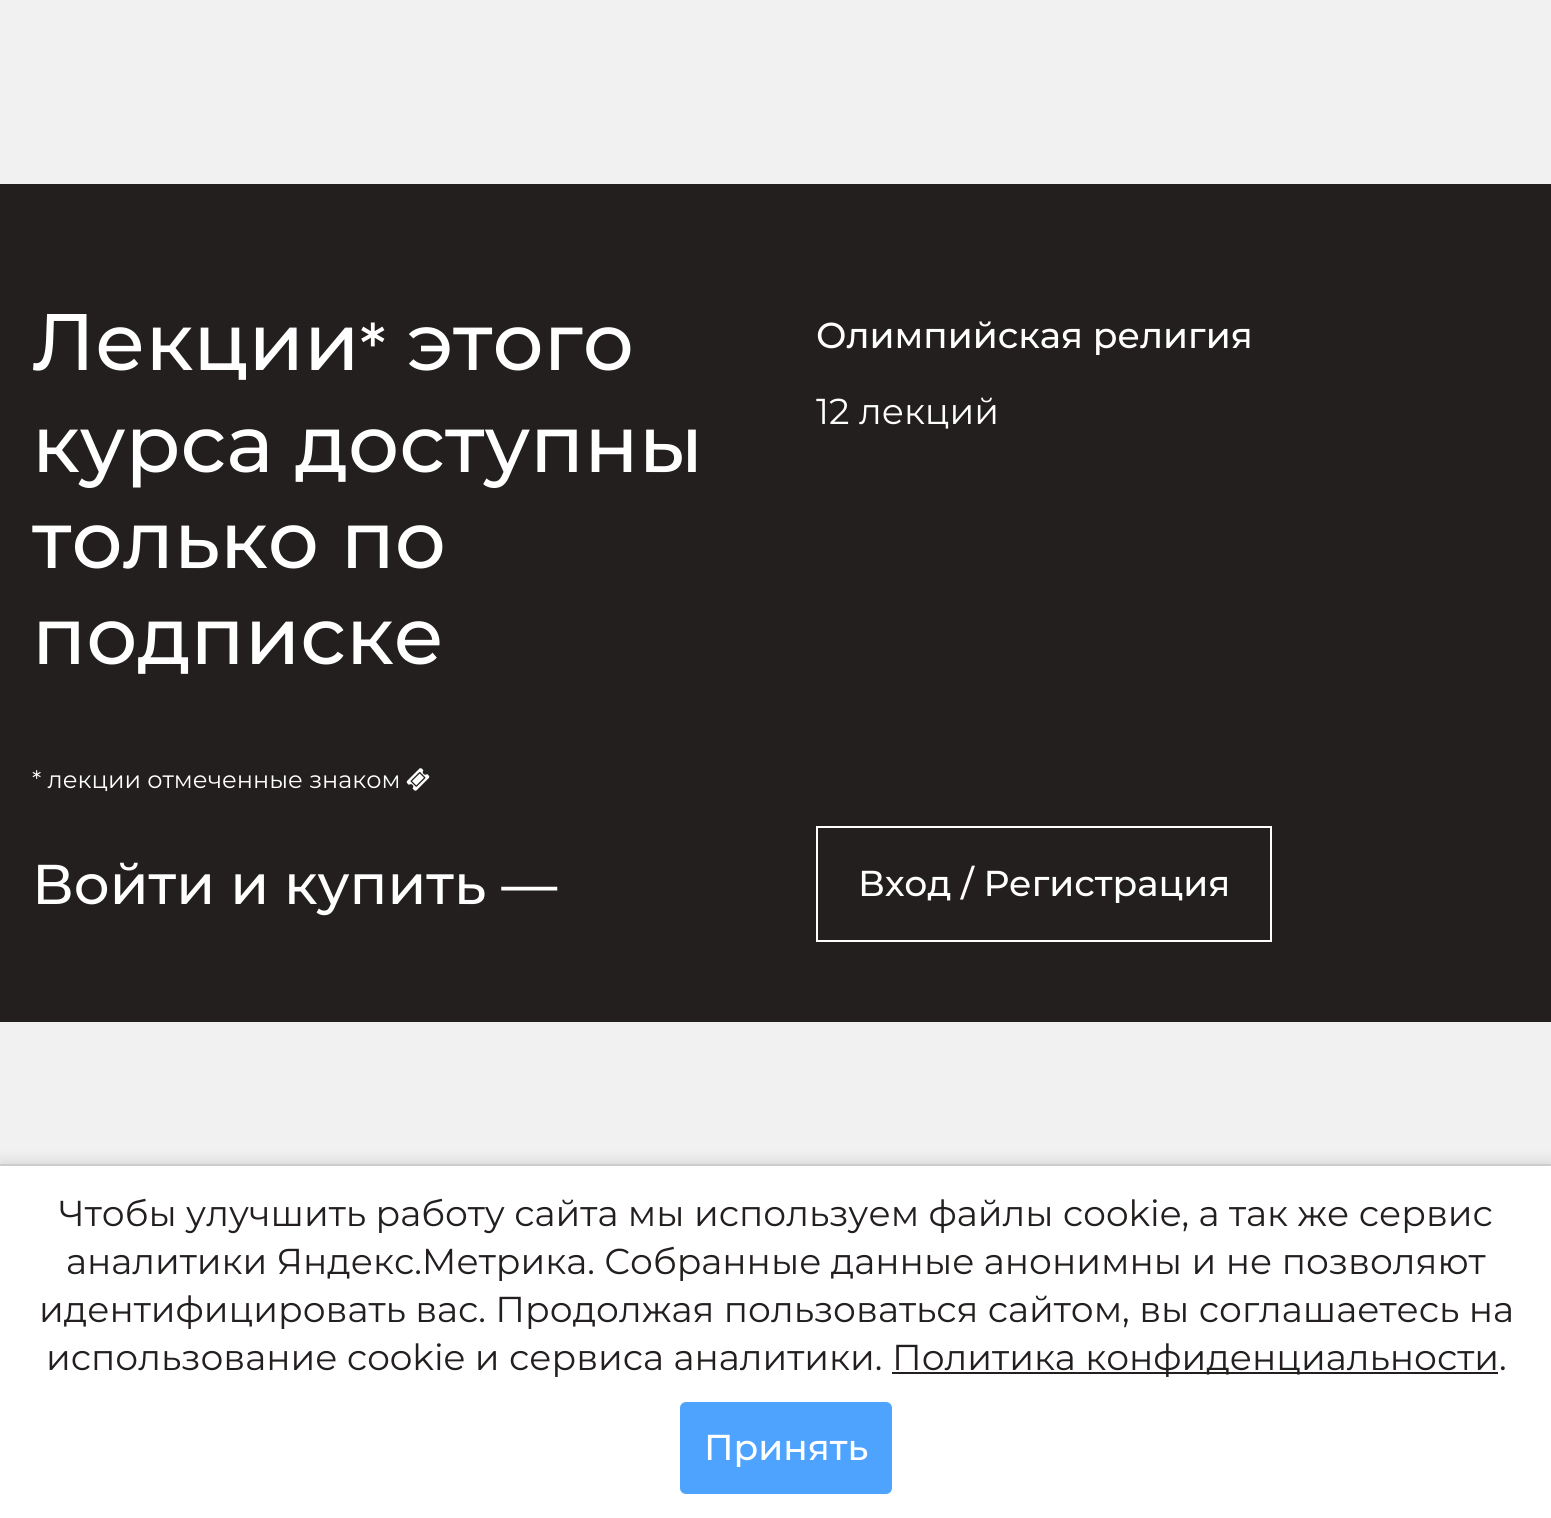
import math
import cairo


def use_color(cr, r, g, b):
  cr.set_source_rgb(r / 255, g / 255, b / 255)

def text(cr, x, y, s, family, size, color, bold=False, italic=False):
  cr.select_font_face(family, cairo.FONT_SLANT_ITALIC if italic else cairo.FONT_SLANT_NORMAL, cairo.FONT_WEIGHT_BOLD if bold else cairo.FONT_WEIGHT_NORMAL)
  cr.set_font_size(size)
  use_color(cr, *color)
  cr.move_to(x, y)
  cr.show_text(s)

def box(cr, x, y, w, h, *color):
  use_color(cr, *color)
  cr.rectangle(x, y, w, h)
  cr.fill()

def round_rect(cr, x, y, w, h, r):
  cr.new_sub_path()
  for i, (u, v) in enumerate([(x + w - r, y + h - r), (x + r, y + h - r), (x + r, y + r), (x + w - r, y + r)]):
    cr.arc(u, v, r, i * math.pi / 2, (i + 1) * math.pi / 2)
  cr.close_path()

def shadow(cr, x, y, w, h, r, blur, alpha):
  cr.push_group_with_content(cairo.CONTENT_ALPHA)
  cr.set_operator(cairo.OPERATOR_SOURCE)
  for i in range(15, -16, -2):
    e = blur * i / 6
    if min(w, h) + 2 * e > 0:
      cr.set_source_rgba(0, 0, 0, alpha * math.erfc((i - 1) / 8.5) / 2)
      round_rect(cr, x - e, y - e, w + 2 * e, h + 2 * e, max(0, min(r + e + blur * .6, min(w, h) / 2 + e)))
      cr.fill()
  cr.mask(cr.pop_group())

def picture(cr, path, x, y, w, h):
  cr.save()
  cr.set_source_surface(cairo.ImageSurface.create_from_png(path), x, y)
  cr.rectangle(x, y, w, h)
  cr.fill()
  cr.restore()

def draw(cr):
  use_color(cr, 241, 241, 241)
  cr.paint()
  box(cr, 0, 184, 1551, 838, 36, 31, 31)
  picture(cr, "img_01.png", 406, 768, 24, 23)
  cr.rectangle(817, 827, 454, 114)
  use_color(cr, 255, 255, 255)
  cr.stroke()
  use_color(cr, 0, 0, 0)
  shadow(cr, 0, 1160, 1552, 354, 0, 6, 0.1)
  box(cr, 0, 1166, 1551, 352, 255, 255, 255)
  box(cr, 0, 1164, 1551, 2, 204, 204, 204)
  box(cr, 892, 1372, 606, 2, 36, 31, 31)
  use_color(cr, 78, 163, 255)
  round_rect(cr, 680, 1402, 212, 92, 6)
  cr.fill()
  text(cr, 32, 370, "Лекции", "Montserrat Medium", 80, (255, 255, 255))
  text(cr, 360, 370, "*", "Montserrat Medium", 64, (255, 255, 255))
  text(cr, 407, 370, "этого", "Montserrat Medium", 80, (255, 255, 255))
  text(cr, 32, 472, "курса доступны", "Montserrat Medium", 80, (255, 255, 255))
  text(cr, 32, 568, "только по", "Montserrat Medium", 80, (255, 255, 255))
  text(cr, 32, 664, "подписке", "Montserrat Medium", 80, (255, 255, 255))
  text(cr, 816, 348, "Олимпийская религия", "Montserrat Medium", 36, (255, 255, 255))
  text(cr, 816, 424, "12 лекций", "Montserrat", 36, (255, 255, 255))
  text(cr, 32, 788, "* лекции отмеченные знаком", "Montserrat", 24, (255, 255, 255))
  text(cr, 32, 904, "Войти и купить —", "Montserrat Medium", 56, (255, 255, 255))
  text(cr, 858, 896, "Вход / Регистрация", "Montserrat Medium", 36, (255, 255, 255))
  text(cr, 59, 1226, "Чтобы улучшить работу сайта мы используем файлы cookie, а так же сервис", "Montserrat", 36, (36, 31, 31))
  text(cr, 66, 1274, "аналитики Яндекс.Метрика. Собранные данные анонимны и не позволяют", "Montserrat", 36, (36, 31, 31))
  text(cr, 39, 1322, "идентифицировать вас. Продолжая пользоваться сайтом, вы соглашаетесь на", "Montserrat", 36, (36, 31, 31))
  text(cr, 46, 1370, "использование cookie и сервиса аналитики.", "Montserrat", 36, (36, 31, 31))
  text(cr, 892, 1370, "Политика конфиденциальности.", "Montserrat", 36, (36, 31, 31))
  text(cr, 704, 1460, "Принять", "Montserrat Medium", 36, (255, 255, 255))


surface = cairo.ImageSurface(cairo.FORMAT_RGB24, 1551, 1518)
cr = cairo.Context(surface)
options = cairo.FontOptions()
options.set_hint_metrics(cairo.HINT_METRICS_OFF)
options.set_hint_style(cairo.HINT_STYLE_NONE)
cr.set_font_options(options)
cr.set_miter_limit(4)
draw(cr)
surface.write_to_png("out.png")
